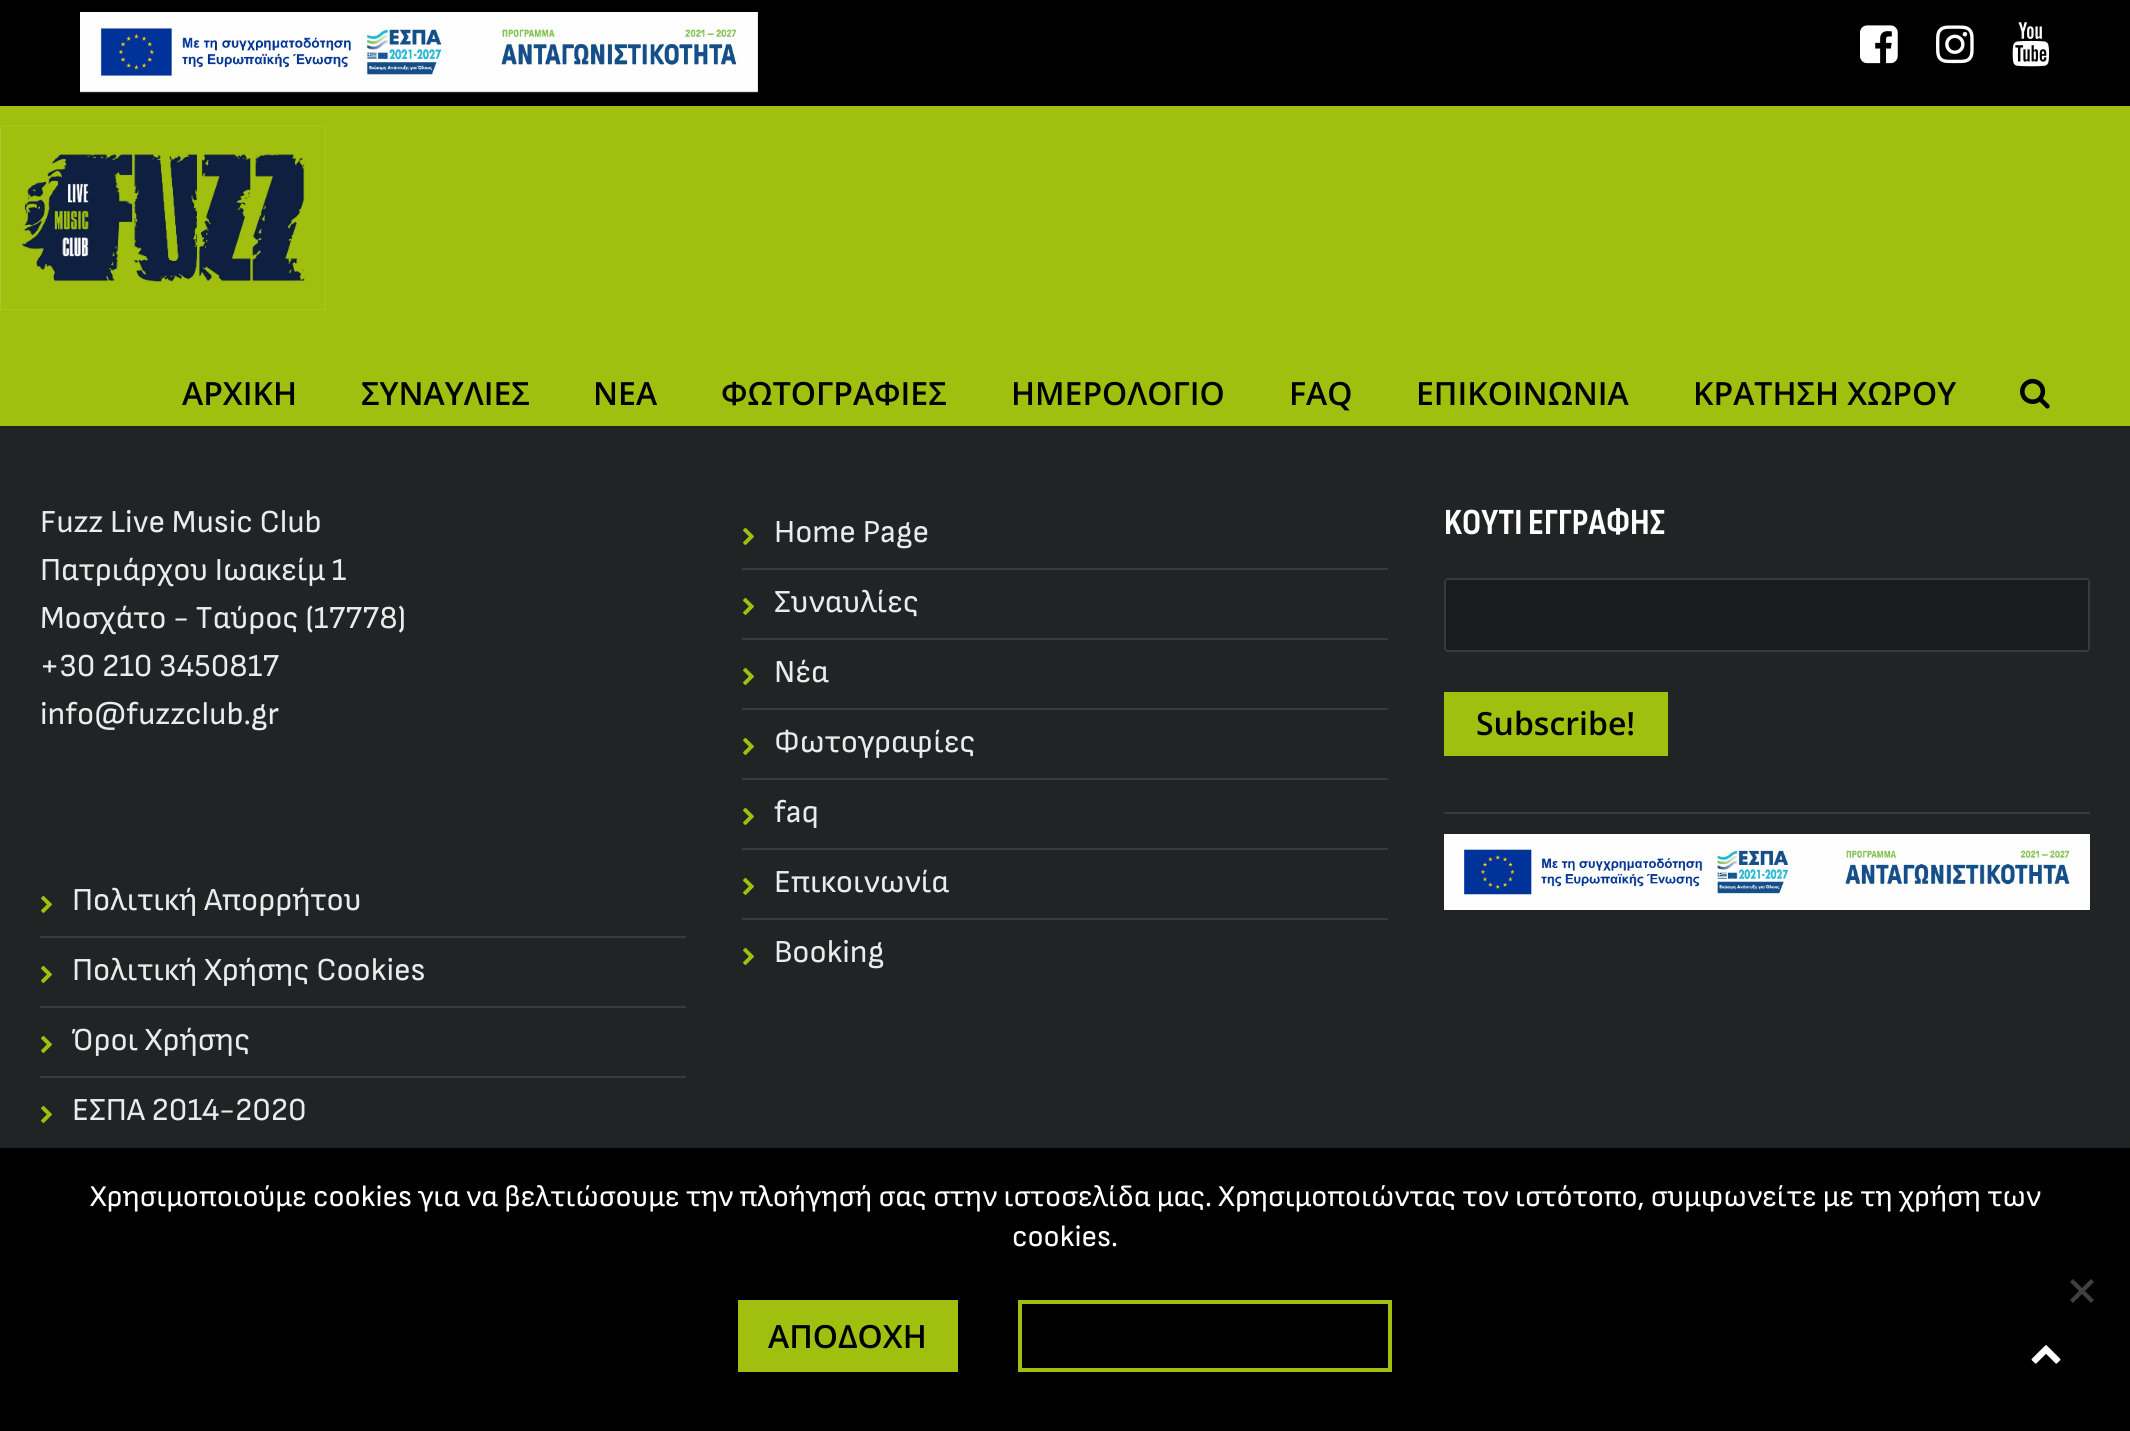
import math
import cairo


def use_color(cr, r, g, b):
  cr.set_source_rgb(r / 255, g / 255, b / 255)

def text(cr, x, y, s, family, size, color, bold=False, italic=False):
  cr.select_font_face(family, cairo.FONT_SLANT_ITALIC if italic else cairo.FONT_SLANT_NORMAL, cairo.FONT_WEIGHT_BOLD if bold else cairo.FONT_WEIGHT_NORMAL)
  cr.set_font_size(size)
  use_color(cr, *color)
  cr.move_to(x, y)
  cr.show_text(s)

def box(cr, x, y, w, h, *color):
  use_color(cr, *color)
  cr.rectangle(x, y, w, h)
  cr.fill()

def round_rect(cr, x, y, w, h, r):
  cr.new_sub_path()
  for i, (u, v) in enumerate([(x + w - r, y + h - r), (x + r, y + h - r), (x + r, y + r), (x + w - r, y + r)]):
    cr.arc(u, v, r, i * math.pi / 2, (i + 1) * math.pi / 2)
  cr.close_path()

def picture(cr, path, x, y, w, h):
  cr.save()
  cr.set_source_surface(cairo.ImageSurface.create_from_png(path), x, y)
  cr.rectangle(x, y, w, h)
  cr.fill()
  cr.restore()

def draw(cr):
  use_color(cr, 33, 36, 37)
  cr.paint()
  box(cr, 0, 0, 2130, 106, 0, 0, 0)
  picture(cr, "img_01.png", 80, 12, 678, 81)
  picture(cr, "img_02.png", 1860, 25, 38, 39)
  picture(cr, "img_03.png", 1936, 25, 38, 39)
  picture(cr, "img_04.png", 2012, 22, 38, 45)
  box(cr, 0, 106, 2130, 320, 161, 191, 15)
  picture(cr, "img_05.png", 0, 125, 326, 185)
  picture(cr, "img_06.png", 2020, 378, 30, 31)
  box(cr, 40, 936, 646, 2, 55, 59, 60)
  picture(cr, "img_07.png", 41, 895, 11, 18)
  box(cr, 40, 1006, 646, 2, 55, 59, 60)
  picture(cr, "img_07.png", 41, 965, 11, 18)
  box(cr, 40, 1076, 646, 2, 55, 59, 60)
  picture(cr, "img_07.png", 41, 1035, 11, 18)
  picture(cr, "img_07.png", 41, 1105, 11, 18)
  box(cr, 742, 568, 646, 2, 55, 59, 60)
  picture(cr, "img_07.png", 743, 527, 11, 18)
  box(cr, 742, 638, 646, 2, 55, 59, 60)
  picture(cr, "img_07.png", 743, 597, 11, 18)
  box(cr, 742, 708, 646, 2, 55, 59, 60)
  picture(cr, "img_07.png", 743, 667, 11, 18)
  box(cr, 742, 778, 646, 2, 55, 59, 60)
  picture(cr, "img_07.png", 743, 737, 11, 18)
  box(cr, 742, 848, 646, 2, 55, 59, 60)
  picture(cr, "img_07.png", 743, 807, 11, 18)
  box(cr, 742, 918, 646, 2, 55, 59, 60)
  picture(cr, "img_07.png", 743, 877, 11, 18)
  picture(cr, "img_07.png", 743, 947, 11, 18)
  use_color(cr, 25, 27, 28)
  round_rect(cr, 1445, 579, 644, 72, 3)
  cr.fill_preserve()
  use_color(cr, 55, 59, 60)
  cr.stroke()
  box(cr, 1444, 692, 224, 64, 161, 191, 15)
  box(cr, 1444, 812, 646, 2, 55, 59, 60)
  picture(cr, "img_08.png", 1444, 834, 646, 76)
  box(cr, 0, 1148, 2130, 283, 0, 0, 0)
  use_color(cr, 64, 64, 64)
  cr.new_path()
  cr.move_to(2091, 1279)
  cr.line_to(2094, 1282)
  cr.line_to(2073, 1303)
  cr.line_to(2070, 1300)
  cr.close_path()
  cr.fill()
  cr.new_path()
  cr.move_to(2070, 1282)
  cr.line_to(2073, 1279)
  cr.line_to(2094, 1300)
  cr.line_to(2091, 1303)
  cr.close_path()
  cr.fill()
  box(cr, 738, 1300, 220, 72, 161, 191, 15)
  cr.rectangle(1020, 1302, 370, 68)
  cr.set_line_width(4)
  cr.stroke()
  picture(cr, "img_09.png", 2031, 1345, 30, 19)
  text(cr, 182, 405, "ΑΡΧΙΚΗ", "Open Sans SemiBold", 32, (0, 0, 0))
  text(cr, 361, 405, "ΣΥΝΑΥΛΙΕΣ", "Open Sans SemiBold", 32, (0, 0, 0))
  text(cr, 593, 405, "ΝΕΑ", "Open Sans SemiBold", 32, (0, 0, 0))
  text(cr, 721, 405, "ΦΩΤΟΓΡΑΦΙΕΣ", "Open Sans SemiBold", 32, (0, 0, 0))
  text(cr, 1011, 405, "ΗΜΕΡΟΛΟΓΙΟ", "Open Sans SemiBold", 32, (0, 0, 0))
  text(cr, 1289, 405, "FAQ", "Open Sans SemiBold", 32, (0, 0, 0))
  text(cr, 1416, 405, "ΕΠΙΚΟΙΝΩΝΙΑ", "Open Sans SemiBold", 32, (0, 0, 0))
  text(cr, 1693, 405, "ΚΡΑΤΗΣΗ ΧΩΡΟΥ", "Open Sans SemiBold", 32, (0, 0, 0))
  text(cr, 40, 532, "Fuzz Live Music Club", "Sofia Sans", 32, (235, 235, 235))
  text(cr, 40, 580, "Πατριάρχου Ιωακείμ 1", "Sofia Sans", 32, (235, 235, 235))
  text(cr, 40, 628, "Μοσχάτο - Ταύρος (17778)", "Sofia Sans", 32, (235, 235, 235))
  text(cr, 40, 676, "+30 210 3450817", "Sofia Sans", 32, (235, 235, 235))
  text(cr, 40, 724, "info@fuzzclub.gr", "Sofia Sans", 32, (235, 235, 235))
  text(cr, 72, 910, "Πολιτική Απορρήτου", "Sofia Sans", 32, (235, 235, 235))
  text(cr, 72, 980, "Πολιτική Χρήσης Cookies", "Sofia Sans", 32, (235, 235, 235))
  text(cr, 72, 1050, "Όροι Χρήσης", "Sofia Sans", 32, (235, 235, 235))
  text(cr, 72, 1120, "ΕΣΠΑ 2014-2020", "Sofia Sans", 32, (235, 235, 235))
  text(cr, 774, 542, "Home Page", "Sofia Sans", 32, (235, 235, 235))
  text(cr, 774, 612, "Συναυλίες", "Sofia Sans", 32, (235, 235, 235))
  text(cr, 774, 682, "Nέα", "Sofia Sans", 32, (235, 235, 235))
  text(cr, 774, 752, "Φωτογραφίες", "Sofia Sans", 32, (235, 235, 235))
  text(cr, 774, 822, "faq", "Sofia Sans", 32, (235, 235, 235))
  text(cr, 774, 892, "Επικοινωνία", "Sofia Sans", 32, (235, 235, 235))
  text(cr, 774, 962, "Booking", "Sofia Sans", 32, (235, 235, 235))
  text(cr, 1444, 534, "KOYTI ΕΓΓΡΑΦΗΣ", "Sofia Sans Condensed", 36.75, (255, 255, 255), bold=True)
  text(cr, 1476, 735, "Subscribe!", "Open Sans SemiBold", 32, (0, 0, 0))
  text(cr, 90, 1206, "Χρησιμοποιούμε cookies για να βελτιώσουμε την πλοήγησή σας στην ιστοσελίδα μας. Χρησιμοποιώντας τον ιστότοπο, συμφωνείτε με τη χρήση των", "Sofia Sans", 30, (255, 255, 255))
  text(cr, 1012, 1246, "cookies.", "Sofia Sans", 30, (255, 255, 255))
  text(cr, 768, 1348, "ΑΠΟΔΟΧΗ", "Open Sans SemiBold", 32, (0, 0, 0))


surface = cairo.ImageSurface(cairo.FORMAT_RGB24, 2130, 1431)
cr = cairo.Context(surface)
options = cairo.FontOptions()
options.set_hint_metrics(cairo.HINT_METRICS_OFF)
options.set_hint_style(cairo.HINT_STYLE_NONE)
cr.set_font_options(options)
cr.set_miter_limit(4)
draw(cr)
surface.write_to_png("out.png")
